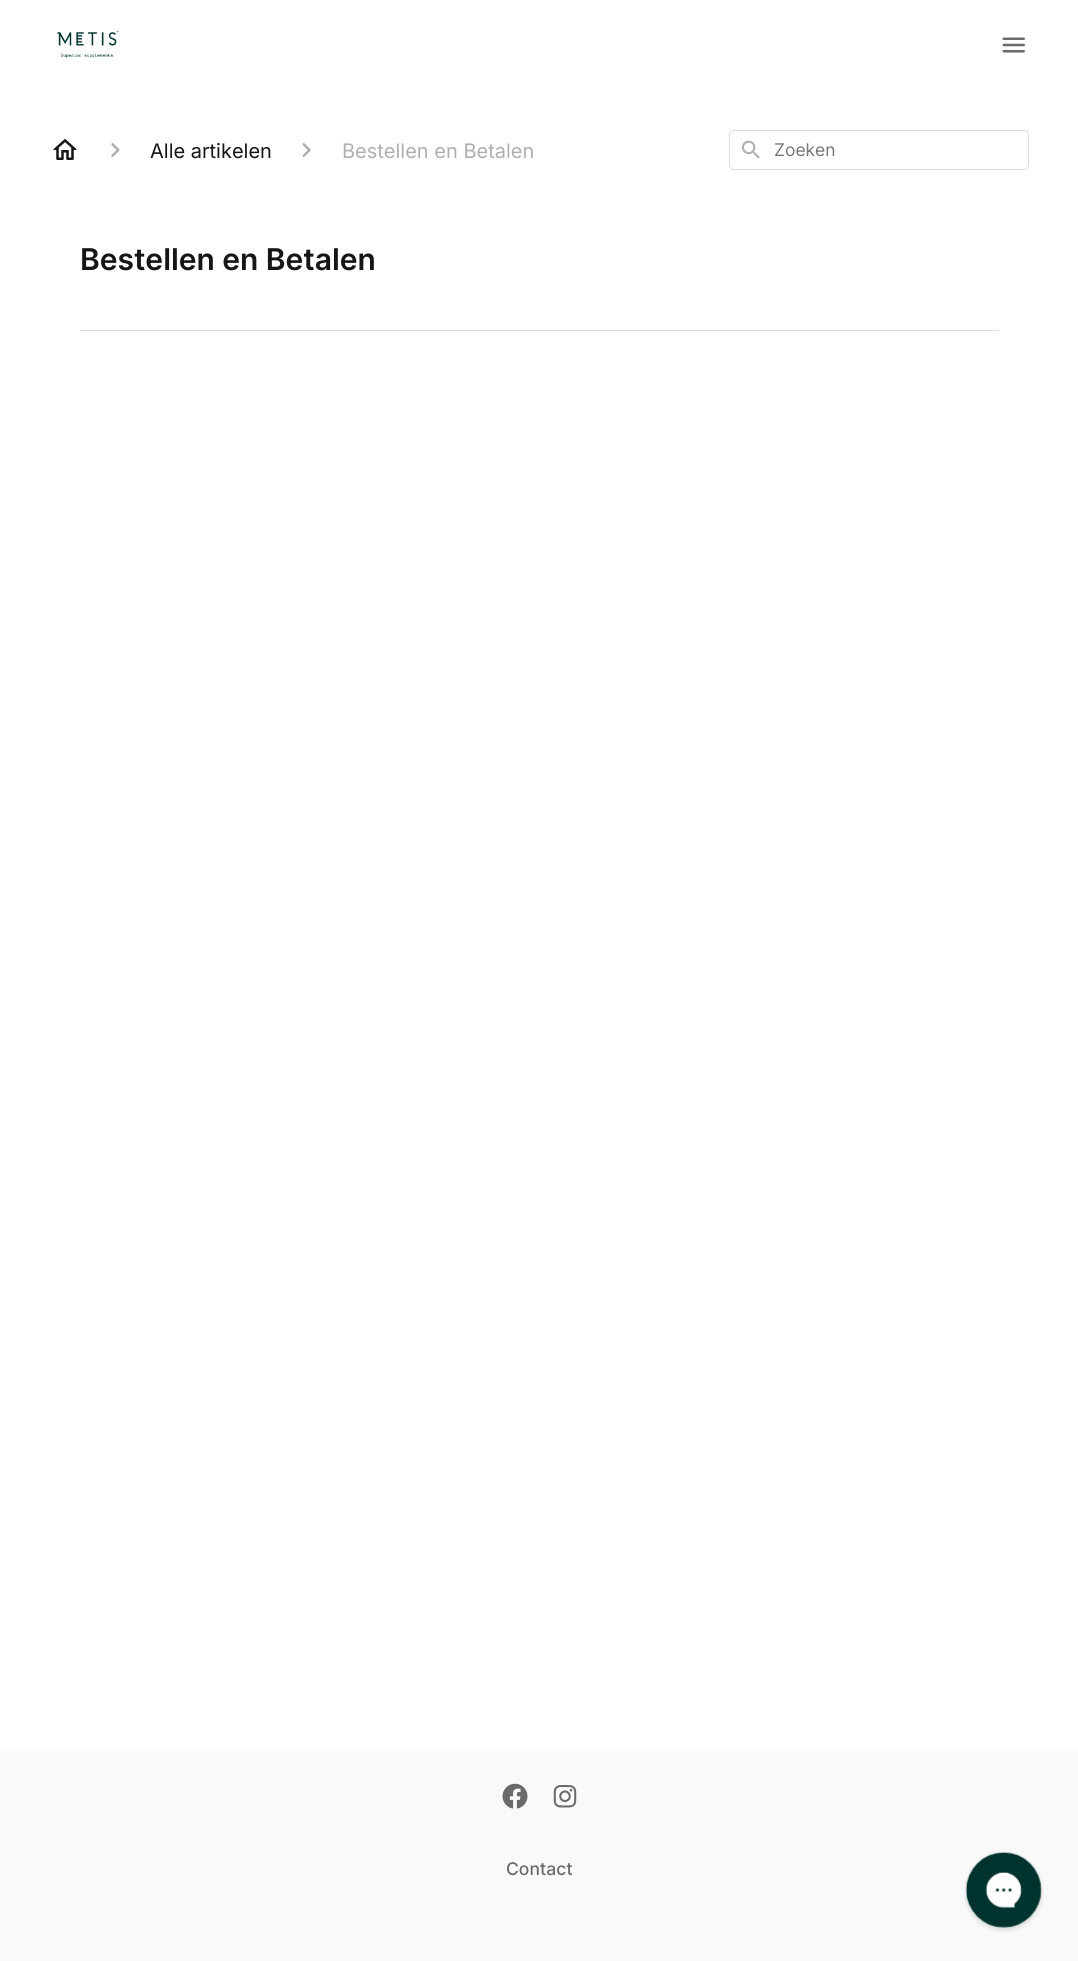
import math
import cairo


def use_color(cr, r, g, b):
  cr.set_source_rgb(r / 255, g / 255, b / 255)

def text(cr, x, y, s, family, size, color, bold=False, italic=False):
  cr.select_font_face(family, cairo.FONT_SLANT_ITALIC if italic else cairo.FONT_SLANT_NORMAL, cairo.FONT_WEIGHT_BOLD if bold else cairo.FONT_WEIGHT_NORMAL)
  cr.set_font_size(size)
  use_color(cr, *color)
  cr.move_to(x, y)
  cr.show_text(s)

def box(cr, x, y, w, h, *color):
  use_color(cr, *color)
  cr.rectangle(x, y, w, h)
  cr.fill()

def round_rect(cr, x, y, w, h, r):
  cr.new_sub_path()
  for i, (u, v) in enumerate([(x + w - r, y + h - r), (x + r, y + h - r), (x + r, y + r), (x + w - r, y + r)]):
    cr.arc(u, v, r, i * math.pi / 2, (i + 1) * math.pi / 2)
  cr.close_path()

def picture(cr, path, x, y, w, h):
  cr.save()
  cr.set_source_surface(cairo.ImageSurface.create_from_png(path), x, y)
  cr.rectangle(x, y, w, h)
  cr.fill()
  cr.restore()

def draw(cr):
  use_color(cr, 255, 255, 255)
  cr.paint()
  picture(cr, "img_01.png", 57, 30, 62, 28)
  picture(cr, "img_02.png", 1002, 37, 23, 16)
  picture(cr, "img_03.png", 53, 139, 24, 21)
  picture(cr, "img_04.png", 111, 143, 9, 14)
  picture(cr, "img_05.png", 302, 143, 9, 14)
  round_rect(cr, 729.5, 130.5, 299, 39, 4.5)
  use_color(cr, 221, 221, 221)
  cr.set_line_width(1)
  cr.stroke()
  picture(cr, "img_06.png", 741, 140, 19, 19)
  box(cr, 80, 330, 919, 1, 221, 221, 221)
  box(cr, 0, 1751, 1078, 210, 249, 249, 249)
  picture(cr, "img_07.png", 502, 1783, 26, 26)
  picture(cr, "img_08.png", 553, 1785, 24, 23)
  picture(cr, "img_09.png", 964, 1852, 80, 81)
  text(cr, 150, 158, "Alle artikelen", "Inter", 20, (22, 22, 22))
  text(cr, 342, 158, "Bestellen en Betalen", "Inter", 20, (175, 175, 175))
  text(cr, 774, 156, "Zoeken", "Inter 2", 17.5, (117, 117, 117))
  text(cr, 80, 270, "Bestellen en Betalen", "Inter SemiBold", 30, (22, 22, 22))
  text(cr, 506, 1875, "Contact", "Inter Medium", 17.5, (106, 106, 106))


surface = cairo.ImageSurface(cairo.FORMAT_RGB24, 1078, 1961)
cr = cairo.Context(surface)
options = cairo.FontOptions()
options.set_hint_metrics(cairo.HINT_METRICS_OFF)
options.set_hint_style(cairo.HINT_STYLE_NONE)
cr.set_font_options(options)
cr.set_miter_limit(4)
draw(cr)
surface.write_to_png("out.png")
